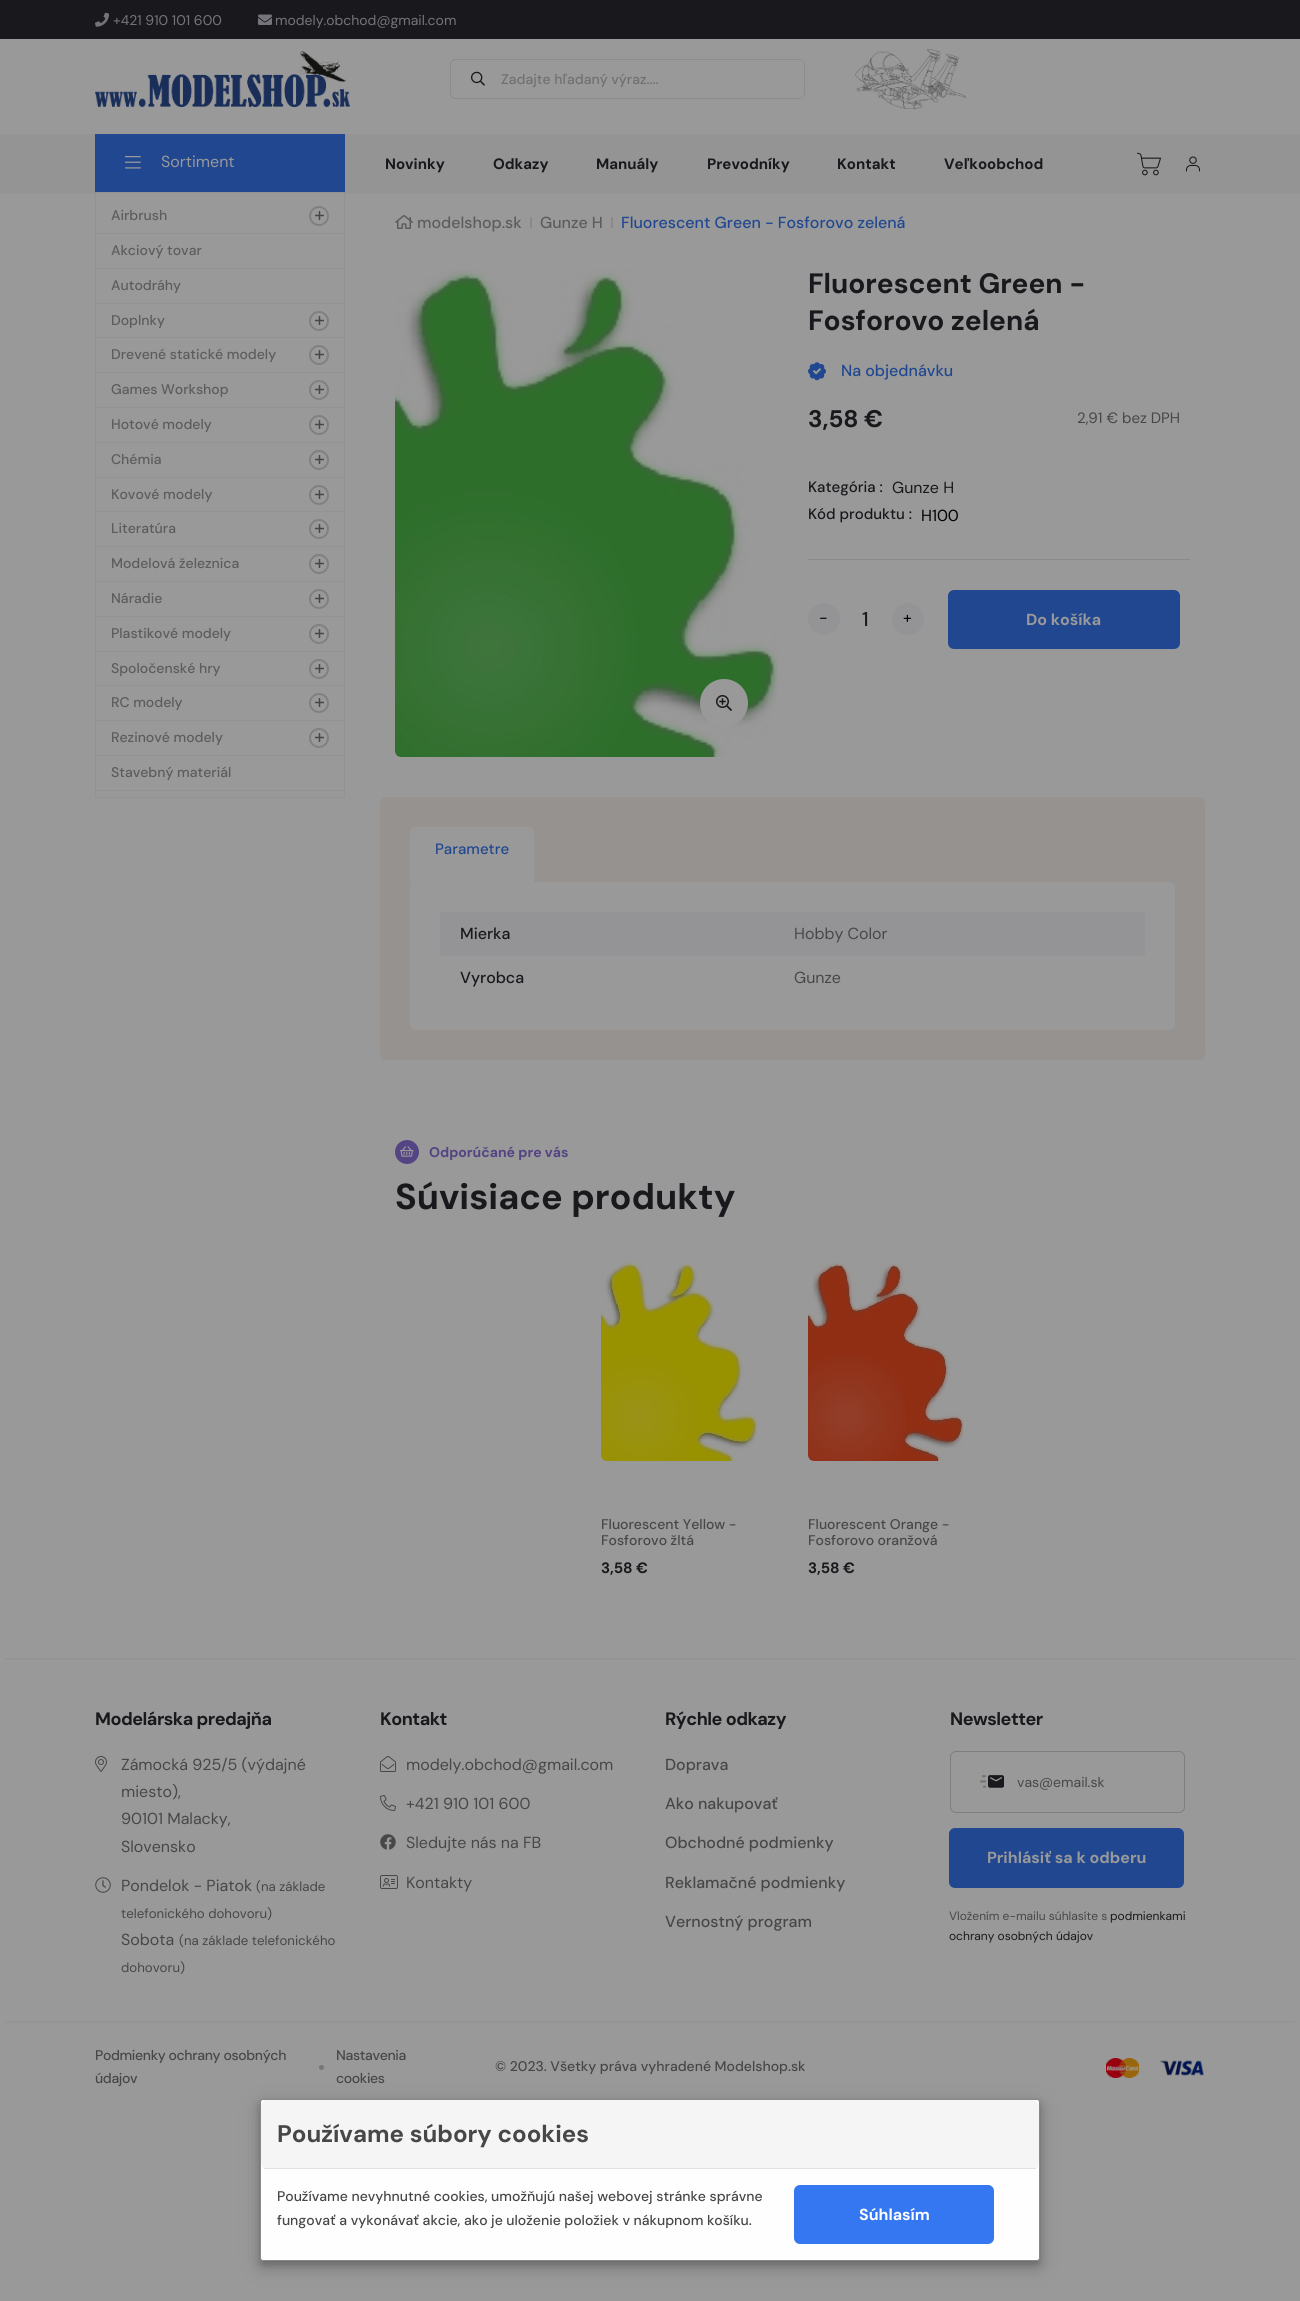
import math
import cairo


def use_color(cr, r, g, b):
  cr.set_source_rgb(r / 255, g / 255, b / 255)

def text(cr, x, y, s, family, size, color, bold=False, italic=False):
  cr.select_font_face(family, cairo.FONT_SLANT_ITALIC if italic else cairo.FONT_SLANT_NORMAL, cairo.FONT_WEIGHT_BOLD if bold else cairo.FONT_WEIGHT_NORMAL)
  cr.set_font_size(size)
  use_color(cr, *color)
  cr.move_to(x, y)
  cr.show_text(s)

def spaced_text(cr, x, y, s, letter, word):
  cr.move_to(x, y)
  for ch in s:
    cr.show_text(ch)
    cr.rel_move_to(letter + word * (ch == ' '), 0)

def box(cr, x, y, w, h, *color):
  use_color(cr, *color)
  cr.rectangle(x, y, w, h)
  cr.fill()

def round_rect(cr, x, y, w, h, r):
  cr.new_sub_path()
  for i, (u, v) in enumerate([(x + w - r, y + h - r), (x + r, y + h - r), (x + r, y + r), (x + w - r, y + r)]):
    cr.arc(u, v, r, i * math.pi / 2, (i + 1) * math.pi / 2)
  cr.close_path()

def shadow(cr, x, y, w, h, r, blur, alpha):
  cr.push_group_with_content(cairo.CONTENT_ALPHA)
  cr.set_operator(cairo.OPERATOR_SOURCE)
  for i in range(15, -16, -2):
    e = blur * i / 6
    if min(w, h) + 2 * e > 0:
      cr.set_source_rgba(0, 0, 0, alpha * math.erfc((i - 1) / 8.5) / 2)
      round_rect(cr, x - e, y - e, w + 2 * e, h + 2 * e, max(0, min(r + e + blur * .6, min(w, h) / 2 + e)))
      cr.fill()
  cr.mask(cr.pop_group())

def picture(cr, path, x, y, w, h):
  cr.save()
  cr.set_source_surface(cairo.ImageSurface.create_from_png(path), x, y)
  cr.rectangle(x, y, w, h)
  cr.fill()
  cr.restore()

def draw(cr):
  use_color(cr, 153, 153, 153)
  cr.paint()
  box(cr, 0, 0, 1300, 39, 25, 25, 29)
  picture(cr, "img_01.png", 95, 12, 14, 15)
  picture(cr, "img_02.png", 258, 14, 14, 11)
  picture(cr, "img_03.png", 95, 51, 255, 56)
  round_rect(cr, 450.5, 59.5, 354, 39, 5.5)
  use_color(cr, 140, 140, 140)
  cr.set_line_width(1)
  cr.stroke()
  picture(cr, "img_04.png", 471, 71, 14, 15)
  picture(cr, "img_05.png", 855, 49, 111, 60)
  box(cr, 0, 134, 1300, 60, 148, 148, 148)
  picture(cr, "img_06.png", 1137, 152, 24, 24)
  picture(cr, "img_07.png", 1185, 156, 16, 16)
  box(cr, 95, 134, 250, 58, 32, 71, 144)
  picture(cr, "img_08.png", 125, 156, 16, 13)
  box(cr, 96, 193, 248, 1, 153, 153, 153)
  cr.rectangle(95.5, 192.5, 249, 605)
  use_color(cr, 146, 146, 146)
  cr.stroke()
  box(cr, 96, 233, 248, 1, 146, 146, 146)
  cr.arc(319, 216, 9, 0, 2 * math.pi)
  use_color(cr, 128, 128, 128)
  cr.set_line_width(2)
  cr.stroke()
  picture(cr, "img_09.png", 315, 211, 9, 9)
  box(cr, 96, 268, 248, 1, 146, 146, 146)
  box(cr, 96, 303, 248, 1, 146, 146, 146)
  box(cr, 96, 337, 248, 1, 146, 146, 146)
  cr.arc(319, 321, 9, 0, 2 * math.pi)
  use_color(cr, 128, 128, 128)
  cr.stroke()
  picture(cr, "img_09.png", 315, 316, 9, 9)
  box(cr, 96, 372, 248, 1, 146, 146, 146)
  cr.arc(319, 355, 9, 0, 2 * math.pi)
  use_color(cr, 128, 128, 128)
  cr.stroke()
  picture(cr, "img_09.png", 315, 350, 9, 9)
  box(cr, 96, 407, 248, 1, 146, 146, 146)
  cr.arc(319, 390, 9, 0, 2 * math.pi)
  use_color(cr, 128, 128, 128)
  cr.stroke()
  picture(cr, "img_09.png", 315, 385, 9, 9)
  box(cr, 96, 442, 248, 1, 146, 146, 146)
  cr.arc(319, 425, 9, 0, 2 * math.pi)
  use_color(cr, 128, 128, 128)
  cr.stroke()
  picture(cr, "img_09.png", 315, 420, 9, 9)
  box(cr, 96, 477, 248, 1, 146, 146, 146)
  cr.arc(319, 460, 9, 0, 2 * math.pi)
  use_color(cr, 128, 128, 128)
  cr.stroke()
  picture(cr, "img_09.png", 315, 455, 9, 9)
  box(cr, 96, 511, 248, 1, 146, 146, 146)
  cr.arc(319, 495, 9, 0, 2 * math.pi)
  use_color(cr, 128, 128, 128)
  cr.stroke()
  picture(cr, "img_09.png", 315, 490, 9, 9)
  box(cr, 96, 546, 248, 1, 146, 146, 146)
  cr.arc(319, 529, 9, 0, 2 * math.pi)
  use_color(cr, 128, 128, 128)
  cr.stroke()
  picture(cr, "img_09.png", 315, 524, 9, 9)
  box(cr, 96, 581, 248, 1, 146, 146, 146)
  cr.arc(319, 564, 9, 0, 2 * math.pi)
  use_color(cr, 128, 128, 128)
  cr.stroke()
  picture(cr, "img_09.png", 315, 559, 9, 9)
  box(cr, 96, 616, 248, 1, 146, 146, 146)
  cr.arc(319, 599, 9, 0, 2 * math.pi)
  use_color(cr, 128, 128, 128)
  cr.stroke()
  picture(cr, "img_09.png", 315, 594, 9, 9)
  box(cr, 96, 651, 248, 1, 146, 146, 146)
  cr.arc(319, 634, 9, 0, 2 * math.pi)
  use_color(cr, 128, 128, 128)
  cr.stroke()
  picture(cr, "img_09.png", 315, 629, 9, 9)
  box(cr, 96, 685, 248, 1, 146, 146, 146)
  cr.arc(319, 669, 9, 0, 2 * math.pi)
  use_color(cr, 128, 128, 128)
  cr.stroke()
  picture(cr, "img_09.png", 315, 664, 9, 9)
  box(cr, 96, 720, 248, 1, 146, 146, 146)
  cr.arc(319, 703, 9, 0, 2 * math.pi)
  use_color(cr, 128, 128, 128)
  cr.stroke()
  picture(cr, "img_09.png", 315, 698, 9, 9)
  box(cr, 96, 755, 248, 1, 146, 146, 146)
  cr.arc(319, 738, 9, 0, 2 * math.pi)
  use_color(cr, 128, 128, 128)
  cr.stroke()
  picture(cr, "img_09.png", 315, 733, 9, 9)
  box(cr, 96, 790, 248, 1, 146, 146, 146)
  picture(cr, "img_10.png", 395, 215, 18, 14)
  box(cr, 530, 217, 2, 11, 137, 137, 137)
  box(cr, 611, 217, 2, 11, 137, 137, 137)
  picture(cr, "img_11.png", 395, 269, 383, 488)
  use_color(cr, 153, 153, 153)
  cr.arc(724, 703, 24, 0, 2 * math.pi)
  cr.fill()
  picture(cr, "img_12.png", 716, 695, 16, 16)
  picture(cr, "img_13.png", 808, 362, 18, 19)
  box(cr, 808, 559, 382, 1, 136, 138, 140)
  use_color(cr, 148, 148, 151)
  cr.arc(824, 619, 16, 0, 2 * math.pi)
  cr.fill()
  cr.arc(908, 619, 16, 0, 2 * math.pi)
  cr.fill()
  use_color(cr, 32, 71, 144)
  round_rect(cr, 948, 590, 232, 59, 6)
  cr.fill()
  use_color(cr, 149, 146, 144)
  round_rect(cr, 380, 797, 825, 263, 6)
  cr.fill()
  use_color(cr, 153, 153, 153)
  cr.new_path()
  cr.move_to(416, 827)
  cr.line_to(528, 827)
  cr.curve_to(531.5, 827, 534, 829.5, 534, 833)
  cr.line_to(534, 872)
  cr.line_to(410, 872)
  cr.line_to(410, 833)
  cr.curve_to(410, 829.5, 412.5, 827, 416, 827)
  cr.close_path()
  cr.fill()
  round_rect(cr, 410, 882, 765, 148, 6)
  cr.fill()
  box(cr, 410, 872, 124, 12, 153, 153, 153)
  box(cr, 440, 912, 705, 44, 148, 148, 151)
  use_color(cr, 84, 68, 131)
  cr.arc(407, 1152, 12, 0, 2 * math.pi)
  cr.fill()
  picture(cr, "img_14.png", 400, 1146, 14, 11)
  picture(cr, "img_15.png", 601, 1261, 156, 200)
  picture(cr, "img_16.png", 808, 1262, 156, 199)
  use_color(cr, 148, 148, 151)
  round_rect(cr, 5, 1658, 1290, 2, 1)
  cr.fill()
  picture(cr, "img_17.png", 95, 1756, 12, 16)
  picture(cr, "img_18.png", 95, 1877, 16, 16)
  picture(cr, "img_19.png", 380, 1756, 16, 16)
  picture(cr, "img_20.png", 380, 1795, 16, 16)
  picture(cr, "img_21.png", 380, 1834, 16, 16)
  picture(cr, "img_22.png", 380, 1875, 18, 14)
  round_rect(cr, 950.5, 1751.5, 234, 61, 5.5)
  use_color(cr, 122, 127, 130)
  cr.set_line_width(1)
  cr.stroke()
  picture(cr, "img_23.png", 980, 1775, 24, 13)
  use_color(cr, 32, 71, 144)
  round_rect(cr, 949, 1828, 235, 60, 6)
  cr.fill()
  use_color(cr, 148, 148, 151)
  round_rect(cr, 5, 2021, 1290, 2, 1)
  cr.fill()
  use_color(cr, 118, 118, 118)
  cr.arc(321.5, 2067.5, 2.5, 0, 2 * math.pi)
  cr.fill()
  use_color(cr, 0, 0, 0)
  shadow(cr, 260, 2105, 780, 162, 3, 10, 0.19)
  shadow(cr, 260, 2103, 780, 162, 3, 4, 0.2)
  use_color(cr, 254, 254, 254)
  round_rect(cr, 260.5, 2099.5, 779, 161, 2.5)
  cr.fill_preserve()
  use_color(cr, 136, 136, 136)
  cr.stroke()
  use_color(cr, 245, 245, 245)
  round_rect(cr, 261, 2100, 778, 69, 6)
  cr.fill()
  box(cr, 264, 2168, 772, 1, 222, 226, 230)
  use_color(cr, 53, 119, 240)
  round_rect(cr, 794, 2185, 200, 59, 6)
  cr.fill()
  picture(cr, "img_24.png", 1106, 2058, 33, 20)
  picture(cr, "img_25.png", 1160, 2060, 44, 16)
  text(cr, 113, 25, "+421 910 101 600", "DM Sans", 14, (116, 116, 122))
  text(cr, 275, 25, "modely.obchod@gmail.com", "DM Sans", 14, (116, 116, 122))
  text(cr, 501, 84, "Zadajte hľadaný výraz....", "DM Sans Medium", 14, (112, 112, 112))
  text(cr, 385, 169, "Novinky", "DM Sans", 15, (25, 25, 29), bold=True)
  text(cr, 493, 169, "Odkazy", "DM Sans", 15, (25, 25, 29), bold=True)
  text(cr, 596, 169, "Manuály", "DM Sans", 15, (25, 25, 29), bold=True)
  text(cr, 707, 169, "Prevodníky", "DM Sans", 15, (25, 25, 29), bold=True)
  text(cr, 837, 169, "Kontakt", "DM Sans", 15, (25, 25, 29), bold=True)
  text(cr, 944, 169, "Veľkoobchod", "DM Sans", 15, (25, 25, 29), bold=True)
  text(cr, 161, 167, "Sortiment", "DM Sans", 16, (153, 153, 153))
  text(cr, 111, 220, "Airbrush", "DM Sans Medium", 14, (92, 92, 92))
  text(cr, 111, 255, "Akciový tovar", "DM Sans Medium", 14, (92, 92, 92))
  text(cr, 111, 290, "Autodráhy", "DM Sans Medium", 14, (92, 92, 92))
  text(cr, 111, 325, "Doplnky", "DM Sans Medium", 14, (92, 92, 92))
  text(cr, 111, 359, "Drevené statické modely", "DM Sans Medium", 14, (92, 92, 92))
  text(cr, 111, 394, "Games Workshop", "DM Sans Medium", 14, (92, 92, 92))
  text(cr, 111, 429, "Hotové modely", "DM Sans Medium", 14, (92, 92, 92))
  text(cr, 111, 464, "Chémia", "DM Sans Medium", 14, (92, 92, 92))
  text(cr, 111, 499, "Kovové modely", "DM Sans Medium", 14, (92, 92, 92))
  text(cr, 111, 533, "Literatúra", "DM Sans Medium", 14, (92, 92, 92))
  text(cr, 111, 568, "Modelová železnica", "DM Sans Medium", 14, (92, 92, 92))
  text(cr, 111, 603, "Náradie", "DM Sans Medium", 14, (92, 92, 92))
  text(cr, 111, 638, "Plastikové modely", "DM Sans Medium", 14, (92, 92, 92))
  text(cr, 111, 673, "Spoločenské hry", "DM Sans Medium", 14, (92, 92, 92))
  text(cr, 111, 707, "RC modely", "DM Sans Medium", 14, (92, 92, 92))
  text(cr, 111, 742, "Rezinové modely", "DM Sans Medium", 14, (92, 92, 92))
  text(cr, 111, 777, "Stavebný materiál", "DM Sans Medium", 14, (92, 92, 92))
  text(cr, 417, 228, "modelshop.sk", "DM Sans Medium", 16, (92, 92, 92))
  text(cr, 540, 228, "Gunze H", "DM Sans Medium", 16, (92, 92, 92))
  text(cr, 621, 228, "Fluorescent Green - Fosforovo zelená", "DM Sans Medium", 16, (32, 71, 144))
  text(cr, 808, 293, "Fluorescent Green -", "DM Sans", 28, (25, 25, 29), bold=True)
  text(cr, 808, 330, "Fosforovo zelená", "DM Sans", 28, (25, 25, 29), bold=True)
  text(cr, 841, 376, "Na objednávku", "DM Sans Medium", 16, (32, 71, 144))
  text(cr, 808, 427, "3,58 €", "DM Sans", 24, (25, 25, 29), bold=True)
  text(cr, 1077, 423, "2,91 € bez DPH", "DM Sans", 15, (71, 71, 71))
  text(cr, 808, 492, "Kategória :", "DM Sans Medium", 15, (25, 25, 29))
  text(cr, 892, 493, "Gunze H", "DM Sans", 16, (25, 25, 29))
  text(cr, 808, 519, "Kód produktu :", "DM Sans Medium", 15, (25, 25, 29))
  text(cr, 921, 521, "H100", "DM Sans", 16, (0, 0, 0))
  text(cr, 819, 623, "-", "DM Sans", 16, (0, 0, 0))
  text(cr, 862, 626, "1", "DM Sans Medium", 20, (25, 25, 29))
  text(cr, 903, 623, "+", "DM Sans", 16, (0, 0, 0))
  text(cr, 1026, 625, "Do košíka", "DM Sans", 16, (153, 153, 153), bold=True)
  text(cr, 435, 854, "Parametre", "DM Sans Medium", 15, (32, 71, 144))
  text(cr, 460, 939, "Mierka", "DM Sans Medium", 16, (25, 25, 29))
  text(cr, 794, 939, "Hobby Color", "DM Sans", 16, (71, 71, 71))
  text(cr, 460, 983, "Vyrobca", "DM Sans Medium", 16, (25, 25, 29))
  text(cr, 794, 983, "Gunze", "DM Sans", 16, (71, 71, 71))
  text(cr, 429, 1157, "Odporúčané pre vás", "DM Sans", 14, (84, 68, 131), bold=True)
  text(cr, 395, 1209, "Súvisiace produkty", "DM Sans", 36, (25, 25, 29), bold=True)
  text(cr, 601, 1529, "Fluorescent Yellow -", "DM Sans Medium", 14, (71, 71, 71))
  text(cr, 601, 1545, "Fosforovo žltá", "DM Sans Medium", 14, (71, 71, 71))
  text(cr, 601, 1573, "3,58 €", "DM Sans", 15, (25, 25, 29), bold=True)
  text(cr, 808, 1529, "Fluorescent Orange -", "DM Sans Medium", 14, (71, 71, 71))
  text(cr, 808, 1545, "Fosforovo oranžová", "DM Sans Medium", 14, (71, 71, 71))
  text(cr, 808, 1573, "3,58 €", "DM Sans", 15, (25, 25, 29), bold=True)
  cr.set_font_size(18)
  spaced_text(cr, 95, 1725, "Modelárska predajňa", -0.5, 0)
  text(cr, 121, 1770, "Zámocká 925/5 (výdajné", "DM Sans", 16, (71, 71, 71))
  text(cr, 121, 1797, "miesto),", "DM Sans", 16, (71, 71, 71))
  text(cr, 121, 1824, "90101 Malacky,", "DM Sans", 16, (71, 71, 71))
  text(cr, 121, 1852, "Slovensko", "DM Sans", 16, (71, 71, 71))
  text(cr, 121, 1891, "Pondelok - Piatok", "DM Sans", 16, (71, 71, 71))
  text(cr, 256, 1891, "(na základe", "DM Sans", 13.25, (71, 71, 71))
  text(cr, 121, 1918, "telefonického dohovoru)", "DM Sans", 13.25, (71, 71, 71))
  text(cr, 121, 1945, "Sobota", "DM Sans", 16, (71, 71, 71))
  text(cr, 179, 1945, "(na základe telefonického", "DM Sans", 13.25, (71, 71, 71))
  text(cr, 121, 1972, "dohovoru)", "DM Sans", 13.25, (71, 71, 71))
  cr.select_font_face("DM Sans", cairo.FONT_SLANT_NORMAL, cairo.FONT_WEIGHT_BOLD)
  cr.set_font_size(18)
  use_color(cr, 25, 25, 29)
  spaced_text(cr, 380, 1725, "Kontakt", -0.5, 0)
  text(cr, 406, 1770, "modely.obchod@gmail.com", "DM Sans", 16, (71, 71, 71))
  text(cr, 406, 1809, "+421 910 101 600", "DM Sans", 16, (71, 71, 71))
  text(cr, 406, 1848, "Sledujte nás na FB", "DM Sans", 16, (71, 71, 71))
  text(cr, 406, 1888, "Kontakty", "DM Sans", 16, (71, 71, 71))
  cr.select_font_face("DM Sans", cairo.FONT_SLANT_NORMAL, cairo.FONT_WEIGHT_BOLD)
  cr.set_font_size(18)
  use_color(cr, 25, 25, 29)
  spaced_text(cr, 665, 1725, "Rýchle odkazy", -0.5, 0)
  text(cr, 665, 1770, "Doprava", "DM Sans Medium", 16, (71, 71, 71))
  text(cr, 665, 1809, "Ako nakupovať", "DM Sans Medium", 16, (71, 71, 71))
  text(cr, 665, 1848, "Obchodné podmienky", "DM Sans Medium", 16, (71, 71, 71))
  text(cr, 665, 1888, "Reklamačné podmienky", "DM Sans Medium", 16, (71, 71, 71))
  text(cr, 665, 1927, "Vernostný program", "DM Sans Medium", 16, (71, 71, 71))
  cr.select_font_face("DM Sans", cairo.FONT_SLANT_NORMAL, cairo.FONT_WEIGHT_BOLD)
  cr.set_font_size(18)
  use_color(cr, 25, 25, 29)
  spaced_text(cr, 950, 1725, "Newsletter", -0.5, 0)
  text(cr, 1017, 1787, "vas@email.sk", "DM Sans", 14, (71, 71, 71))
  text(cr, 987, 1863, "Prihlásiť sa k odberu", "DM Sans", 16, (153, 153, 153), bold=True)
  text(cr, 949, 1920, "Vložením e-mailu súhlasíte s", "DM Sans", 12, (71, 71, 71))
  text(cr, 1110, 1920, "podmienkami", "DM Sans", 12, (25, 25, 29))
  text(cr, 949, 1940, "ochrany osobných údajov", "DM Sans", 12, (25, 25, 29))
  cr.select_font_face("DM Sans Medium")
  cr.set_font_size(14)
  use_color(cr, 71, 71, 71)
  spaced_text(cr, 95, 2060, "Podmienky ochrany osobných", -0.35, 0)
  spaced_text(cr, 95, 2083, "údajov", -0.35, 0)
  spaced_text(cr, 336, 2060, "Nastavenia", -0.35, 0)
  spaced_text(cr, 336, 2083, "cookies", -0.35, 0)
  text(cr, 277, 2142, "Používame súbory cookies", "DM Sans", 24, (71, 71, 71), bold=True)
  text(cr, 277, 2201, "Používame nevyhnutné cookies, umožňujú našej webovej stránke správne", "DM Sans Medium", 14, (71, 71, 71))
  text(cr, 277, 2225, "fungovať a vykonávať akcie, ako je uloženie položiek v nákupnom košíku.", "DM Sans Medium", 14, (71, 71, 71))
  text(cr, 859, 2220, "Súhlasím", "DM Sans", 16, (255, 255, 255), bold=True)
  text(cr, 495, 2071, "© 2023. Všetky práva vyhradené Modelshop.sk", "DM Sans Medium", 14, (71, 71, 71))


surface = cairo.ImageSurface(cairo.FORMAT_RGB24, 1300, 2301)
cr = cairo.Context(surface)
options = cairo.FontOptions()
options.set_hint_metrics(cairo.HINT_METRICS_OFF)
options.set_hint_style(cairo.HINT_STYLE_NONE)
cr.set_font_options(options)
cr.set_miter_limit(4)
draw(cr)
surface.write_to_png("out.png")
